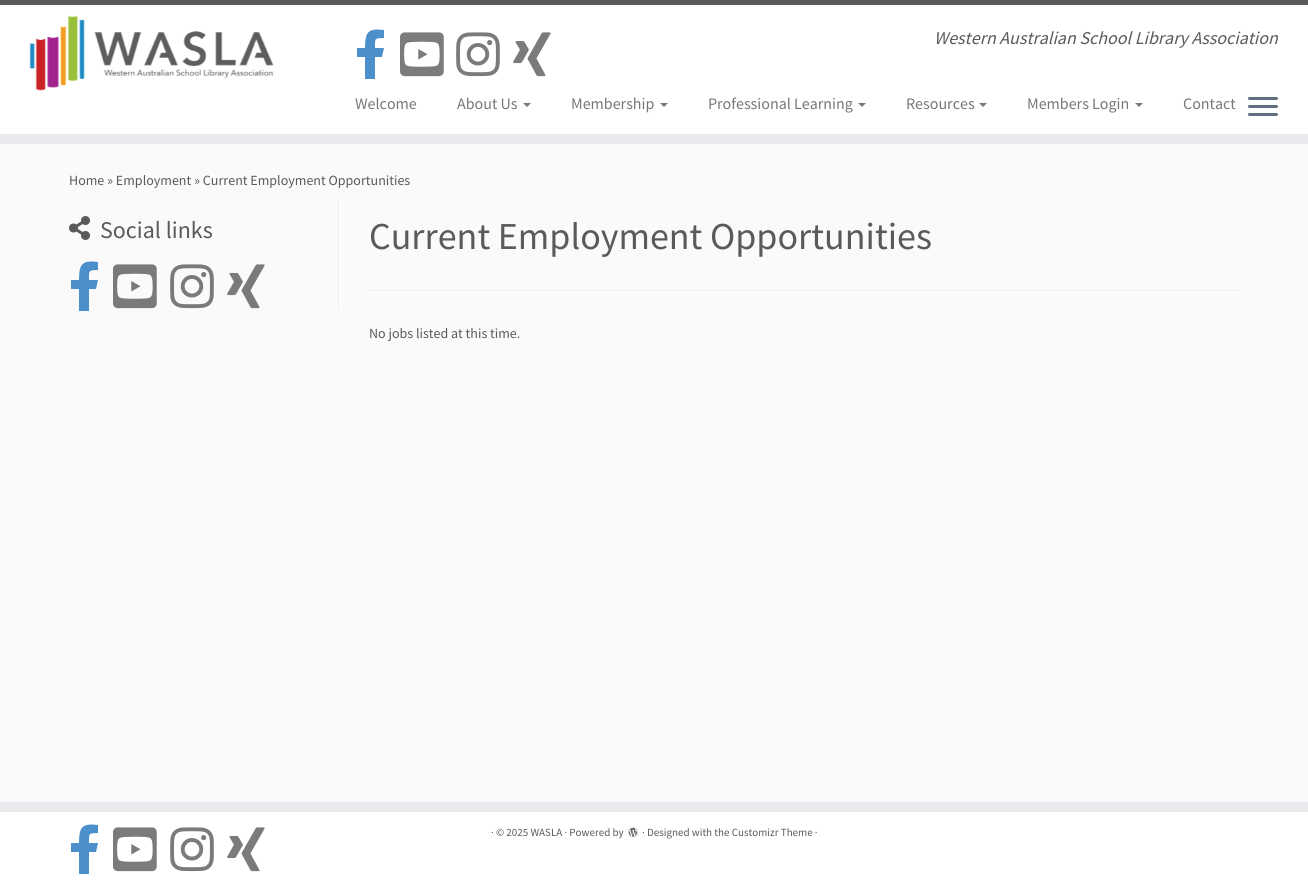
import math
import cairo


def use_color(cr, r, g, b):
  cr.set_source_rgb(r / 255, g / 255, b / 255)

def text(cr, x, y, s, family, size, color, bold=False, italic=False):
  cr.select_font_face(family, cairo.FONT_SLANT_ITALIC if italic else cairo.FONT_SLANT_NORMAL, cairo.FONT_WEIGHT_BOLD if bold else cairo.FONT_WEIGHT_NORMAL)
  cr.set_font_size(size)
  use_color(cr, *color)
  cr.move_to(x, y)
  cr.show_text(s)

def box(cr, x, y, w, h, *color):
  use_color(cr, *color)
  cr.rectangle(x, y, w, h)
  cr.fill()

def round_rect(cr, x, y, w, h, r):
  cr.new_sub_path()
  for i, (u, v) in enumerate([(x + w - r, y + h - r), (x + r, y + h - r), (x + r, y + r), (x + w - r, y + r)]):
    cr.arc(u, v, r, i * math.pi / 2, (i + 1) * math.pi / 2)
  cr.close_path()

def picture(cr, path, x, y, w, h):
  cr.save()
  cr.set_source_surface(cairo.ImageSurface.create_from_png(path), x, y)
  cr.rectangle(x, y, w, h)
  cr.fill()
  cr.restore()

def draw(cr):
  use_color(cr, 250, 250, 250)
  cr.paint()
  box(cr, 0, 5, 1308, 129, 255, 255, 255)
  box(cr, 0, 0, 1308, 5, 90, 90, 90)
  box(cr, 0, 134, 1308, 10, 233, 234, 238)
  picture(cr, "img_01.png", 29, 15, 245, 76)
  use_color(cr, 75, 143, 203)
  cr.new_path()
  cr.move_to(382, 57)
  cr.line_to(375, 57)
  cr.line_to(375, 79)
  cr.line_to(365, 79)
  cr.line_to(365, 57)
  cr.line_to(357, 57)
  cr.line_to(357, 48)
  cr.line_to(365, 48)
  cr.curve_to(365, 32, 368, 28, 384, 30)
  cr.line_to(384, 38)
  cr.curve_to(374, 38, 375, 39, 375, 48)
  cr.line_to(384, 48)
  cr.close_path()
  cr.fill()
  picture(cr, "img_02.png", 400, 32, 44, 45)
  picture(cr, "img_03.png", 456, 32, 44, 45)
  picture(cr, "img_04.png", 513, 32, 38, 45)
  use_color(cr, 119, 119, 119)
  cr.new_path()
  cr.move_to(523, 103)
  cr.line_to(531, 103)
  cr.line_to(527, 107)
  cr.close_path()
  cr.fill()
  cr.new_path()
  cr.move_to(660, 103)
  cr.line_to(668, 103)
  cr.line_to(664, 107)
  cr.close_path()
  cr.fill()
  cr.new_path()
  cr.move_to(858, 103)
  cr.line_to(866, 103)
  cr.line_to(862, 107)
  cr.close_path()
  cr.fill()
  cr.new_path()
  cr.move_to(979, 103)
  cr.line_to(987, 103)
  cr.line_to(983, 107)
  cr.close_path()
  cr.fill()
  cr.new_path()
  cr.move_to(1135, 103)
  cr.line_to(1143, 103)
  cr.line_to(1139, 107)
  cr.close_path()
  cr.fill()
  use_color(cr, 95, 111, 129)
  round_rect(cr, 1248, 97, 30, 3, 1.5)
  cr.fill()
  round_rect(cr, 1248, 105, 30, 3, 1.5)
  cr.fill()
  round_rect(cr, 1248, 113, 30, 3, 1.5)
  cr.fill()
  box(cr, 338, 201, 1, 108, 238, 238, 238)
  picture(cr, "img_05.png", 69, 216, 21, 24)
  use_color(cr, 74, 142, 202)
  cr.new_path()
  cr.move_to(96, 289)
  cr.line_to(89, 289)
  cr.line_to(89, 311)
  cr.line_to(79, 311)
  cr.line_to(79, 289)
  cr.line_to(71, 289)
  cr.line_to(71, 280)
  cr.line_to(79, 280)
  cr.curve_to(79, 264, 82, 260, 98, 262)
  cr.line_to(98, 270)
  cr.curve_to(88, 270, 89, 271, 89, 280)
  cr.line_to(98, 280)
  cr.close_path()
  cr.fill()
  picture(cr, "img_06.png", 113, 264, 44, 45)
  picture(cr, "img_07.png", 170, 264, 44, 45)
  picture(cr, "img_08.png", 227, 264, 38, 45)
  box(cr, 339, 201, 1, 108, 255, 255, 255)
  box(cr, 369, 290, 870, 1, 238, 238, 238)
  box(cr, 369, 291, 870, 1, 255, 255, 255)
  box(cr, 0, 802, 1308, 10, 233, 234, 238)
  box(cr, 0, 812, 1308, 72, 255, 255, 255)
  use_color(cr, 75, 143, 203)
  cr.new_path()
  cr.move_to(96, 852)
  cr.line_to(89, 852)
  cr.line_to(89, 874)
  cr.line_to(79, 874)
  cr.line_to(79, 852)
  cr.line_to(71, 852)
  cr.line_to(71, 843)
  cr.line_to(79, 843)
  cr.curve_to(79, 827, 82, 823, 98, 825)
  cr.line_to(98, 833)
  cr.curve_to(88, 833, 89, 834, 89, 843)
  cr.line_to(98, 843)
  cr.close_path()
  cr.fill()
  picture(cr, "img_02.png", 113, 827, 44, 45)
  picture(cr, "img_03.png", 170, 827, 44, 45)
  picture(cr, "img_04.png", 227, 827, 38, 45)
  picture(cr, "img_09.png", 628, 827, 10, 11)
  text(cr, 934, 44, "Western Australian School Library Association", "Source Sans Pro", 18, (90, 90, 90), italic=True)
  text(cr, 355, 109, "Welcome", "Source Sans Pro", 16, (119, 119, 119))
  text(cr, 457, 109, "About Us", "Source Sans Pro", 16, (119, 119, 119))
  text(cr, 571, 109, "Membership", "Source Sans Pro", 16, (119, 119, 119))
  text(cr, 708, 109, "Professional Learning", "Source Sans Pro", 16, (119, 119, 119))
  text(cr, 906, 109, "Resources", "Source Sans Pro", 16, (119, 119, 119))
  text(cr, 1027, 109, "Members Login", "Source Sans Pro", 16, (119, 119, 119))
  text(cr, 1183, 109, "Contact", "Source Sans Pro", 16, (119, 119, 119))
  text(cr, 69, 185, "Home » Employment » Current Employment Opportunities", "Source Sans Pro", 14, (90, 90, 90))
  text(cr, 100, 238, "Social links", "Source Sans Pro", 24, (90, 90, 90))
  text(cr, 369, 249, "Current Employment Opportunities", "Source Sans Pro", 38, (90, 90, 90))
  text(cr, 369, 338, "No jobs listed at this time.", "Source Sans Pro", 14, (90, 90, 90))
  text(cr, 491, 836, "· © 2025 WASLA · Powered by", "Source Sans Pro", 11, (90, 90, 90))
  text(cr, 642, 836, "· Designed with the Customizr Theme ·", "Source Sans Pro", 11, (90, 90, 90))


surface = cairo.ImageSurface(cairo.FORMAT_RGB24, 1308, 884)
cr = cairo.Context(surface)
options = cairo.FontOptions()
options.set_hint_metrics(cairo.HINT_METRICS_OFF)
options.set_hint_style(cairo.HINT_STYLE_NONE)
cr.set_font_options(options)
cr.set_miter_limit(4)
draw(cr)
surface.write_to_png("out.png")
